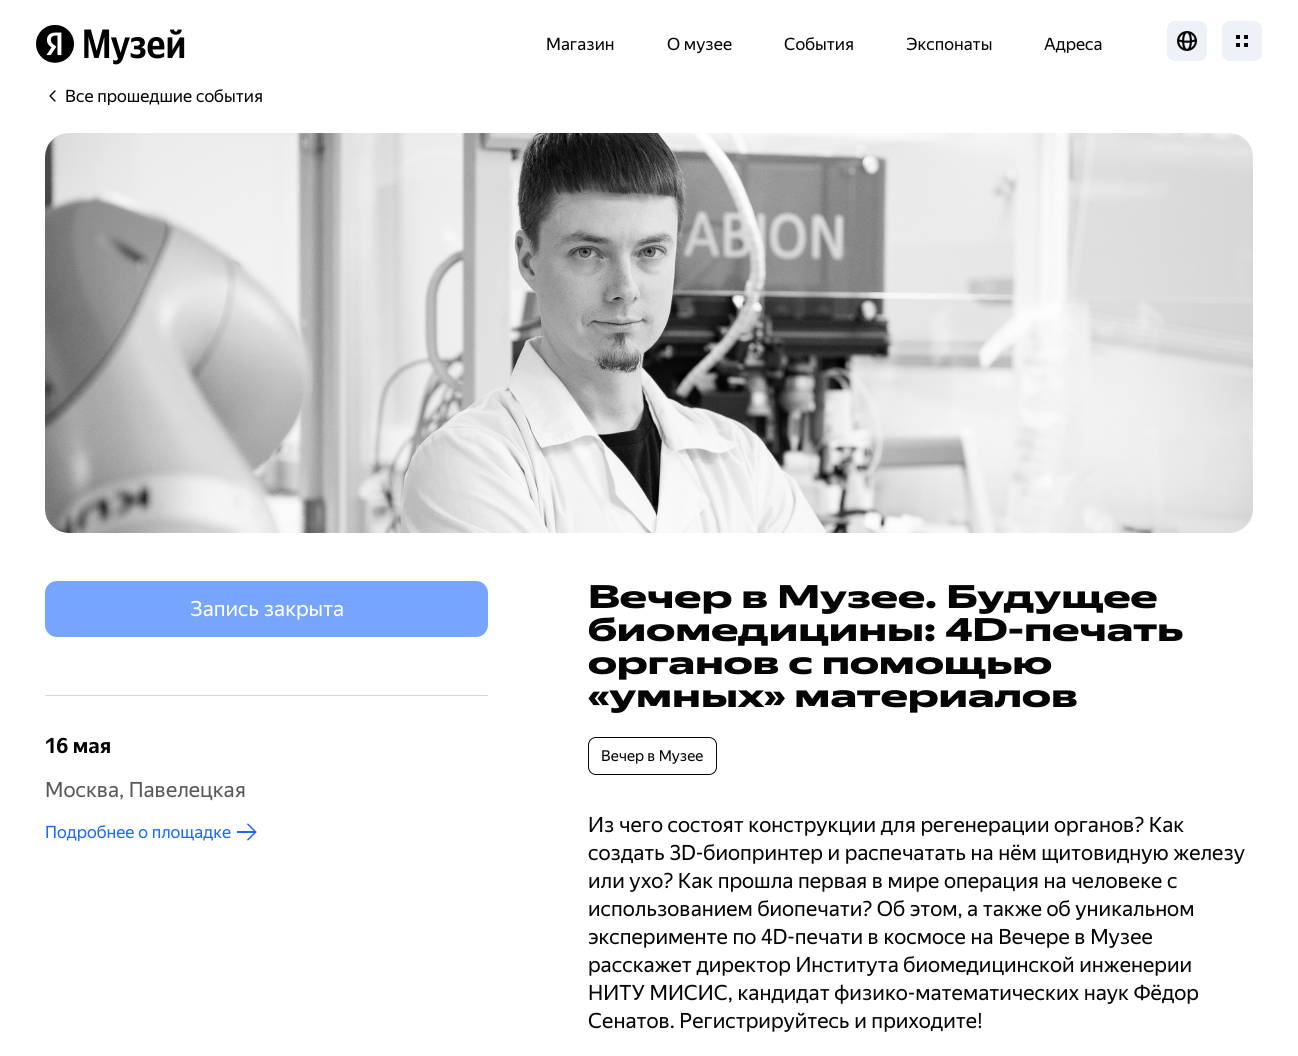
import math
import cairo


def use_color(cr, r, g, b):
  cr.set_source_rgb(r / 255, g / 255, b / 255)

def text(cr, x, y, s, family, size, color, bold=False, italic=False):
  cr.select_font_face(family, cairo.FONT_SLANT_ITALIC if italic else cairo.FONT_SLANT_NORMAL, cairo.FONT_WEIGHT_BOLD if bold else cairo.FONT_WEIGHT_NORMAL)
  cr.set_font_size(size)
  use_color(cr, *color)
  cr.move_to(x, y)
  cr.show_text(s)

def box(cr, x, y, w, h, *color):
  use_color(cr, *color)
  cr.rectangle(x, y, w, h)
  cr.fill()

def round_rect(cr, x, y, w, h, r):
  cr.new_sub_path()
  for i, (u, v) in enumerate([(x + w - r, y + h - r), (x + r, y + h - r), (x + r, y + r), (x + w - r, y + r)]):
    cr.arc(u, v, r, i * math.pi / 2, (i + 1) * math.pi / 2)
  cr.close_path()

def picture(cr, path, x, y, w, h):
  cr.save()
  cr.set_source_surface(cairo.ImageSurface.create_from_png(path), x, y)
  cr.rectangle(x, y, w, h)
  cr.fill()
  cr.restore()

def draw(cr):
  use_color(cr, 255, 255, 255)
  cr.paint()
  picture(cr, "img_01.png", 36, 25, 38, 38)
  picture(cr, "img_02.png", 84, 29, 101, 36)
  use_color(cr, 238, 241, 247)
  round_rect(cr, 1167, 21, 40, 40, 8)
  cr.fill()
  picture(cr, "img_03.png", 1177, 31, 20, 20)
  round_rect(cr, 1222, 21, 40, 40, 8)
  cr.fill()
  picture(cr, "img_04.png", 1236, 35, 12, 12)
  picture(cr, "img_05.png", 49, 90, 7, 12)
  picture(cr, "img_06.png", 45, 133, 1208, 400)
  use_color(cr, 119, 165, 253)
  round_rect(cr, 45, 581, 443, 56, 12)
  cr.fill()
  box(cr, 45, 695, 443, 1, 210, 214, 224)
  picture(cr, "img_07.png", 237, 823, 20, 18)
  round_rect(cr, 588.5, 737.5, 128, 37, 7.5)
  use_color(cr, 5, 5, 5)
  cr.set_line_width(1)
  cr.stroke()
  text(cr, 546, 50, "Магазин", "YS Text", 17, (5, 5, 5))
  text(cr, 667, 50, "О музее", "YS Text", 17, (5, 5, 5))
  text(cr, 784, 50, "События", "YS Text", 17, (5, 5, 5))
  text(cr, 906, 50, "Экспонаты", "YS Text", 17, (5, 5, 5))
  text(cr, 1044, 50, "Адреса", "YS Text", 17, (5, 5, 5))
  text(cr, 65, 102, "Все прошедшие события", "YS Text", 17, (5, 5, 5))
  text(cr, 190, 616, "Запись закрыта", "YS Text", 21, (255, 255, 255))
  text(cr, 45, 753, "16 мая", "YS Text", 21, (5, 5, 5), bold=True)
  text(cr, 45, 797, "Москва, Павелецкая", "YS Text", 21, (89, 89, 89))
  text(cr, 45, 838, "Подробнее о площадке", "YS Text", 17, (29, 105, 252))
  text(cr, 588, 608, "Вечер в Музее. Будущее", "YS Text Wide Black", 32, (5, 5, 5))
  text(cr, 588, 641, "биомедицины: 4D-печать", "YS Text Wide Black", 32, (5, 5, 5))
  text(cr, 588, 674, "органов с помощью", "YS Text Wide Black", 32, (5, 5, 5))
  text(cr, 588, 707, "«умных» материалов", "YS Text Wide Black", 32, (5, 5, 5))
  text(cr, 601, 761, "Вечер в Музее", "YS Text", 15, (5, 5, 5))
  text(cr, 588, 832, "Из чего состоят конструкции для регенерации органов? Как", "YS Text", 21, (5, 5, 5))
  text(cr, 588, 860, "создать 3D-биопринтер и распечатать на нём щитовидную железу", "YS Text", 21, (5, 5, 5))
  text(cr, 588, 888, "или ухо? Как прошла первая в мире операция на человеке с", "YS Text", 21, (5, 5, 5))
  text(cr, 588, 916, "использованием биопечати? Об этом, а также об уникальном", "YS Text", 21, (5, 5, 5))
  text(cr, 588, 944, "эксперименте по 4D-печати в космосе на Вечере в Музее", "YS Text", 21, (5, 5, 5))
  text(cr, 588, 972, "расскажет директор Института биомедицинской инженерии", "YS Text", 21, (5, 5, 5))
  text(cr, 588, 1000, "НИТУ МИСИС, кандидат физико-математических наук Фёдор", "YS Text", 21, (5, 5, 5))
  text(cr, 588, 1028, "Сенатов. Регистрируйтесь и приходите!", "YS Text", 21, (5, 5, 5))


surface = cairo.ImageSurface(cairo.FORMAT_RGB24, 1298, 1056)
cr = cairo.Context(surface)
options = cairo.FontOptions()
options.set_hint_metrics(cairo.HINT_METRICS_OFF)
options.set_hint_style(cairo.HINT_STYLE_NONE)
cr.set_font_options(options)
cr.set_miter_limit(4)
draw(cr)
surface.write_to_png("out.png")
